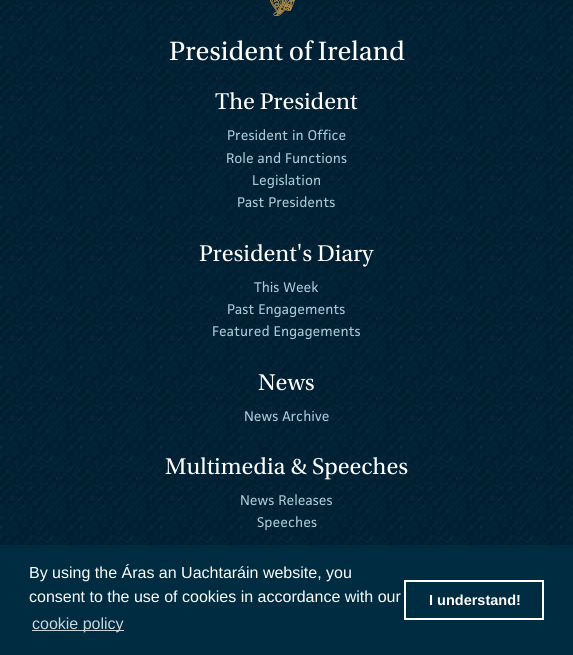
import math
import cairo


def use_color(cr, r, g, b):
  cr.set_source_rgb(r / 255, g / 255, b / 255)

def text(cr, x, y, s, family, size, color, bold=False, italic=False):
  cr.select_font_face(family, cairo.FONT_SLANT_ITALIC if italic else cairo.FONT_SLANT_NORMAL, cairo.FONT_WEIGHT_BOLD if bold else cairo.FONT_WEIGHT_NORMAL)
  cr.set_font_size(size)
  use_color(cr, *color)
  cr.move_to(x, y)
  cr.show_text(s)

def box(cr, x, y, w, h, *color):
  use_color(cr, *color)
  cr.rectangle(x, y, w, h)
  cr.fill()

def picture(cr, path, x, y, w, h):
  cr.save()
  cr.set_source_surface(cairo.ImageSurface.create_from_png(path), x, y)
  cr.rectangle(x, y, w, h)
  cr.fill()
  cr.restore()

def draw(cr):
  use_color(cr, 255, 255, 255)
  cr.paint()
  picture(cr, "img_01.png", 0, 0, 573, 545)
  picture(cr, "img_02.png", 270, 0, 25, 16)
  box(cr, 0, 545, 573, 110, 0, 44, 66)
  box(cr, 32, 630, 92, 1, 204, 213, 217)
  cr.rectangle(405, 581, 138, 38)
  use_color(cr, 255, 255, 255)
  cr.stroke()
  text(cr, 169, 60, "President of Ireland", "Utopia", 28, (255, 255, 255))
  text(cr, 215, 109, "The President", "Utopia", 24, (255, 255, 255))
  text(cr, 227, 140, "President in Office", "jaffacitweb", 13, (170, 201, 213))
  text(cr, 226, 163, "Role and Functions", "jaffacitweb", 13, (170, 201, 213))
  text(cr, 252, 185, "Legislation", "jaffacitweb", 13, (170, 201, 213))
  text(cr, 237, 207, "Past Presidents", "jaffacitweb", 13, (170, 201, 213))
  text(cr, 199, 261, "President's Diary", "Utopia", 24, (255, 255, 255))
  text(cr, 254, 292, "This Week", "jaffacitweb", 13, (170, 201, 213))
  text(cr, 227, 314, "Past Engagements", "jaffacitweb", 13, (170, 201, 213))
  text(cr, 212, 336, "Featured Engagements", "jaffacitweb", 13, (170, 201, 213))
  text(cr, 258, 390, "News", "Utopia", 24, (255, 255, 255))
  text(cr, 244, 421, "News Archive", "jaffacitweb", 13, (170, 201, 213))
  text(cr, 165, 474, "Multimedia & Speeches", "Utopia", 24, (255, 255, 255))
  text(cr, 240, 505, "News Releases", "jaffacitweb", 13, (170, 201, 213))
  text(cr, 257, 527, "Speeches", "jaffacitweb", 13, (170, 201, 213))
  text(cr, 29, 578, "By using the Áras an Uachtaráin website, you", "Liberation Sans", 16, (255, 255, 255))
  text(cr, 29, 602, "consent to the use of cookies in accordance with our", "Liberation Sans", 16, (255, 255, 255))
  text(cr, 32, 629, "cookie policy", "Liberation Sans", 16, (204, 213, 217))
  text(cr, 429, 605, "I understand!", "Liberation Sans", 14.5, (255, 255, 255), bold=True)


surface = cairo.ImageSurface(cairo.FORMAT_RGB24, 573, 655)
cr = cairo.Context(surface)
options = cairo.FontOptions()
options.set_hint_metrics(cairo.HINT_METRICS_OFF)
options.set_hint_style(cairo.HINT_STYLE_NONE)
cr.set_font_options(options)
cr.set_miter_limit(4)
draw(cr)
surface.write_to_png("out.png")
